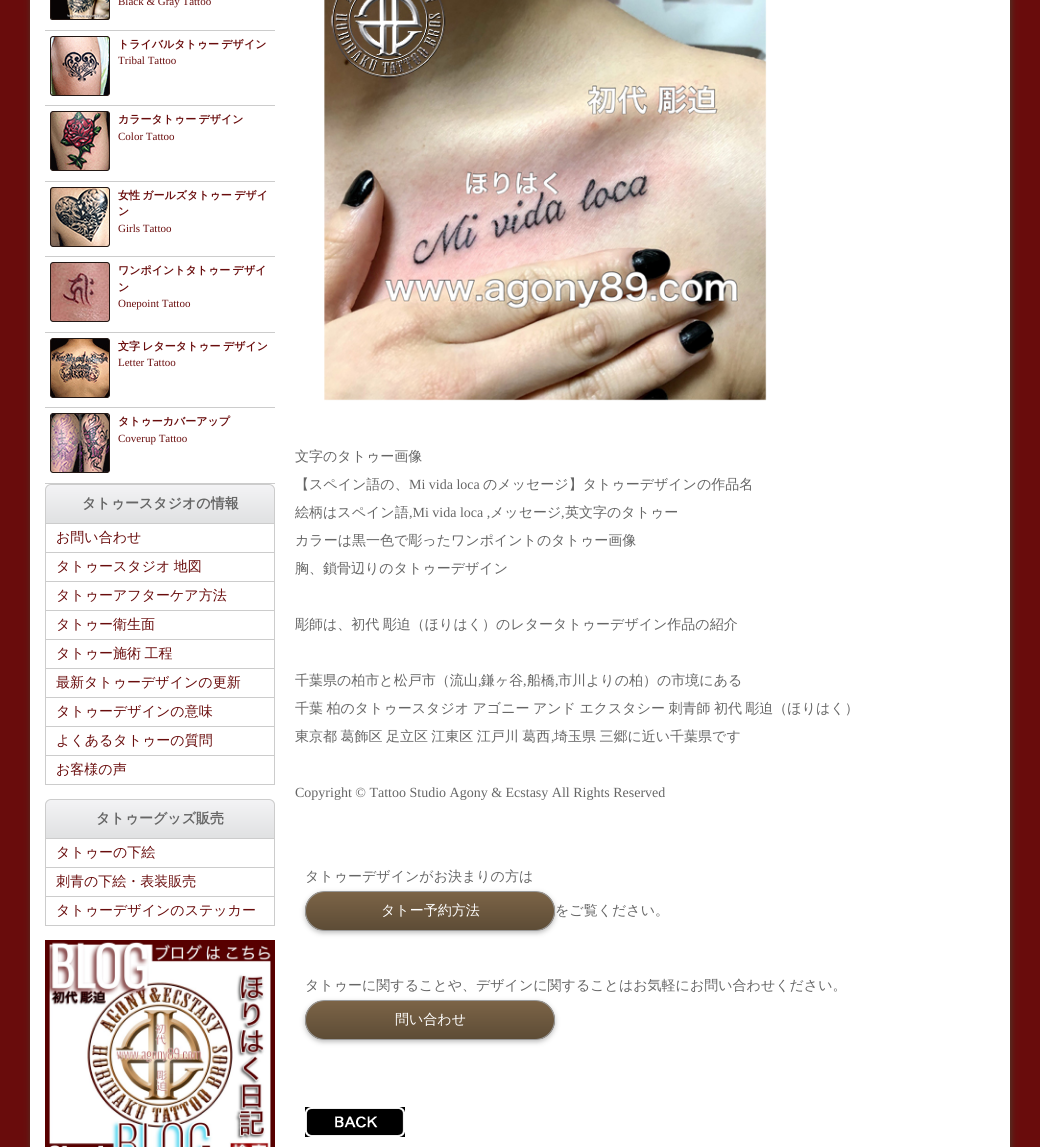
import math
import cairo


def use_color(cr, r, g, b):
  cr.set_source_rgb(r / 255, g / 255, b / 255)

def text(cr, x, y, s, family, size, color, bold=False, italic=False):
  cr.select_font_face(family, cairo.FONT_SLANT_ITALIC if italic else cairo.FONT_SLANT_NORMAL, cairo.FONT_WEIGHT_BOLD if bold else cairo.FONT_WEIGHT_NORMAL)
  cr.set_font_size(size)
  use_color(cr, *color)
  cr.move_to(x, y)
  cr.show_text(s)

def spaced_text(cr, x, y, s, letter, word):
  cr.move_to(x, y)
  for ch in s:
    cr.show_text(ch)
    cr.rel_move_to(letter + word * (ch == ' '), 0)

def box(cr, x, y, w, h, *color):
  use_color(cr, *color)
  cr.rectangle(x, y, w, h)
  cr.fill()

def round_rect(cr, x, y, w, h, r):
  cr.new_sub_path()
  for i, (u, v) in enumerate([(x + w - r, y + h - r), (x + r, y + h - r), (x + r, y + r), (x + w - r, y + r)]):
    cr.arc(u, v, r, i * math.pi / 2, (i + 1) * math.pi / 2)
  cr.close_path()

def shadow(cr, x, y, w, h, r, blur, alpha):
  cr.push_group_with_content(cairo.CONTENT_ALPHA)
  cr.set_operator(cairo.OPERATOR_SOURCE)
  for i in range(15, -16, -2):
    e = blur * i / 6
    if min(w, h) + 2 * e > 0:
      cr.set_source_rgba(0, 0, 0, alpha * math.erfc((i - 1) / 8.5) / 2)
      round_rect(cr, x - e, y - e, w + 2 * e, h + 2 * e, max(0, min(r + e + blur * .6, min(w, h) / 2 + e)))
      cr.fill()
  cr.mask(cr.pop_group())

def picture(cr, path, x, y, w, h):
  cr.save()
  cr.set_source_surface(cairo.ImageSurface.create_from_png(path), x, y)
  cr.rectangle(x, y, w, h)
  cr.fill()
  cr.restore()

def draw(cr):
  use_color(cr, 105, 12, 12)
  cr.paint()
  use_color(cr, 72, 58, 42)
  shadow(cr, 31, -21, 980, 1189, 10, 3.5, 1)
  box(cr, 30, 0, 980, 1147, 255, 255, 255)
  box(cr, 45, 30, 230, 1, 204, 204, 204)
  picture(cr, "img_01.png", 50, 0, 60, 20)
  box(cr, 45, 105, 230, 1, 204, 204, 204)
  picture(cr, "img_02.png", 50, 36, 60, 60)
  box(cr, 45, 181, 230, 1, 204, 204, 204)
  picture(cr, "img_03.png", 50, 111, 60, 60)
  box(cr, 45, 256, 230, 1, 204, 204, 204)
  picture(cr, "img_04.png", 50, 187, 60, 60)
  box(cr, 45, 332, 230, 1, 204, 204, 204)
  picture(cr, "img_05.png", 50, 262, 60, 60)
  box(cr, 45, 407, 230, 1, 204, 204, 204)
  picture(cr, "img_06.png", 50, 338, 60, 60)
  box(cr, 45, 483, 230, 1, 204, 204, 204)
  picture(cr, "img_07.png", 50, 413, 60, 60)
  cr.save()
  cr.new_path()
  cr.move_to(51, 484)
  cr.line_to(269, 484)
  cr.curve_to(272.5, 484, 275, 486.5, 275, 490)
  cr.line_to(275, 524)
  cr.line_to(45, 524)
  cr.line_to(45, 490)
  cr.curve_to(45, 486.5, 47.5, 484, 51, 484)
  cr.close_path()
  cr.clip()
  gradient = cairo.LinearGradient(160, 485, 160, 523)
  gradient.add_color_stop_rgba(0, 0.953, 0.953, 0.961, 1)
  gradient.add_color_stop_rgba(1, 0.878, 0.882, 0.886, 1)
  cr.set_source(gradient)
  cr.rectangle(45, 485, 230, 38)
  cr.fill()
  cr.restore()
  cr.new_path()
  cr.move_to(51, 484.5)
  cr.line_to(269, 484.5)
  cr.curve_to(272, 484.5, 274.5, 487, 274.5, 490)
  cr.line_to(274.5, 523.5)
  cr.line_to(45.5, 523.5)
  cr.line_to(45.5, 490)
  cr.curve_to(45.5, 487, 48, 484.5, 51, 484.5)
  cr.close_path()
  cr.set_line_width(1)
  cr.stroke()
  box(cr, 274, 524, 1, 261, 204, 204, 204)
  box(cr, 45, 552, 230, 1, 204, 204, 204)
  box(cr, 45, 524, 1, 29, 204, 204, 204)
  box(cr, 45, 581, 230, 1, 204, 204, 204)
  box(cr, 45, 553, 1, 29, 204, 204, 204)
  box(cr, 45, 610, 230, 1, 204, 204, 204)
  box(cr, 45, 582, 1, 29, 204, 204, 204)
  box(cr, 45, 639, 230, 1, 204, 204, 204)
  box(cr, 45, 611, 1, 29, 204, 204, 204)
  box(cr, 45, 668, 230, 1, 204, 204, 204)
  box(cr, 45, 640, 1, 29, 204, 204, 204)
  box(cr, 45, 697, 230, 1, 204, 204, 204)
  box(cr, 45, 669, 1, 29, 204, 204, 204)
  box(cr, 45, 726, 230, 1, 204, 204, 204)
  box(cr, 45, 698, 1, 29, 204, 204, 204)
  box(cr, 45, 755, 230, 1, 204, 204, 204)
  box(cr, 45, 727, 1, 29, 204, 204, 204)
  box(cr, 45, 784, 230, 1, 204, 204, 204)
  box(cr, 45, 756, 1, 29, 204, 204, 204)
  cr.save()
  cr.new_path()
  cr.move_to(51, 799)
  cr.line_to(269, 799)
  cr.curve_to(272.5, 799, 275, 801.5, 275, 805)
  cr.line_to(275, 839)
  cr.line_to(45, 839)
  cr.line_to(45, 805)
  cr.curve_to(45, 801.5, 47.5, 799, 51, 799)
  cr.close_path()
  cr.clip()
  gradient = cairo.LinearGradient(160, 800, 160, 838)
  gradient.add_color_stop_rgba(0, 0.953, 0.953, 0.961, 1)
  gradient.add_color_stop_rgba(1, 0.878, 0.882, 0.886, 1)
  cr.set_source(gradient)
  cr.rectangle(45, 800, 230, 38)
  cr.fill()
  cr.restore()
  cr.new_path()
  cr.move_to(51, 799.5)
  cr.line_to(269, 799.5)
  cr.curve_to(272, 799.5, 274.5, 802, 274.5, 805)
  cr.line_to(274.5, 838.5)
  cr.line_to(45.5, 838.5)
  cr.line_to(45.5, 805)
  cr.curve_to(45.5, 802, 48, 799.5, 51, 799.5)
  cr.close_path()
  cr.stroke()
  box(cr, 274, 839, 1, 87, 204, 204, 204)
  box(cr, 45, 867, 230, 1, 204, 204, 204)
  box(cr, 45, 839, 1, 29, 204, 204, 204)
  box(cr, 45, 896, 230, 1, 204, 204, 204)
  box(cr, 45, 868, 1, 29, 204, 204, 204)
  box(cr, 45, 925, 230, 1, 204, 204, 204)
  box(cr, 45, 897, 1, 29, 204, 204, 204)
  picture(cr, "img_08.png", 45, 940, 230, 207)
  picture(cr, "img_09.png", 324, 0, 443, 401)
  use_color(cr, 190, 190, 190)
  shadow(cr, 305, 893, 250, 40, 20, 2.5, 1)
  cr.save()
  round_rect(cr, 305, 891, 250, 40, 20)
  cr.clip()
  gradient = cairo.LinearGradient(430, 892, 430, 930)
  gradient.add_color_stop_rgba(0, 0.486, 0.392, 0.278, 1)
  gradient.add_color_stop_rgba(1, 0.365, 0.298, 0.212, 1)
  cr.set_source(gradient)
  cr.rectangle(305, 892, 250, 38)
  cr.fill()
  cr.restore()
  round_rect(cr, 305.5, 891.5, 249, 39, 19.5)
  use_color(cr, 153, 153, 153)
  cr.stroke()
  use_color(cr, 190, 190, 190)
  shadow(cr, 305, 1002, 250, 40, 20, 2.5, 1)
  cr.save()
  round_rect(cr, 305, 1000, 250, 40, 20)
  cr.clip()
  gradient = cairo.LinearGradient(430, 1001, 430, 1039)
  gradient.add_color_stop_rgba(0, 0.486, 0.392, 0.278, 1)
  gradient.add_color_stop_rgba(1, 0.365, 0.298, 0.212, 1)
  cr.set_source(gradient)
  cr.rectangle(305, 1001, 250, 38)
  cr.fill()
  cr.restore()
  round_rect(cr, 305.5, 1000.5, 249, 39, 19.5)
  use_color(cr, 153, 153, 153)
  cr.stroke()
  picture(cr, "img_10.png", 305, 1107, 100, 30)
  text(cr, 118, 5, "Black & Gray Tattoo", "Liberation Serif", 11, (105, 12, 12))
  cr.select_font_face("WenQuanYi Zen Hei", cairo.FONT_SLANT_NORMAL, cairo.FONT_WEIGHT_BOLD)
  spaced_text(cr, 118, 48, "トライバルタトゥー デザイン", 0, -1)
  text(cr, 118, 64, "Tribal Tattoo", "Liberation Serif", 11, (105, 12, 12))
  cr.select_font_face("WenQuanYi Zen Hei", cairo.FONT_SLANT_NORMAL, cairo.FONT_WEIGHT_BOLD)
  spaced_text(cr, 118, 123, "カラータトゥー デザイン", 0, -1)
  text(cr, 118, 140, "Color Tattoo", "Liberation Serif", 11, (105, 12, 12))
  cr.select_font_face("WenQuanYi Zen Hei", cairo.FONT_SLANT_NORMAL, cairo.FONT_WEIGHT_BOLD)
  spaced_text(cr, 118, 199, "女性 ガールズタトゥー デザイ", 0, -1)
  text(cr, 118, 215, "ン", "WenQuanYi Zen Hei", 11, (105, 12, 12), bold=True)
  text(cr, 118, 232, "Girls Tattoo", "Liberation Serif", 11, (105, 12, 12))
  cr.select_font_face("WenQuanYi Zen Hei", cairo.FONT_SLANT_NORMAL, cairo.FONT_WEIGHT_BOLD)
  spaced_text(cr, 118, 274, "ワンポイントタトゥー デザイ", 0, -1)
  text(cr, 118, 291, "ン", "WenQuanYi Zen Hei", 11, (105, 12, 12), bold=True)
  text(cr, 118, 307, "Onepoint Tattoo", "Liberation Serif", 11, (105, 12, 12))
  cr.select_font_face("WenQuanYi Zen Hei", cairo.FONT_SLANT_NORMAL, cairo.FONT_WEIGHT_BOLD)
  spaced_text(cr, 118, 350, "文字 レタータトゥー デザイン", 0, -1)
  text(cr, 118, 366, "Letter Tattoo", "Liberation Serif", 11, (105, 12, 12))
  text(cr, 118, 425, "タトゥーカバーアップ", "WenQuanYi Zen Hei", 11, (105, 12, 12), bold=True)
  text(cr, 118, 442, "Coverup Tattoo", "Liberation Serif", 11, (105, 12, 12))
  text(cr, 82, 508, "タトゥースタジオの情報", "WenQuanYi Zen Hei", 14, (102, 102, 102), bold=True)
  text(cr, 56, 542, "お問い合わせ", "WenQuanYi Zen Hei Medium", 14, (105, 12, 12))
  spaced_text(cr, 56, 571, "タトゥースタジオ 地図", 0, -0.75)
  text(cr, 56, 600, "タトゥーアフターケア方法", "WenQuanYi Zen Hei Medium", 14, (105, 12, 12))
  text(cr, 56, 629, "タトゥー衛生面", "WenQuanYi Zen Hei Medium", 14, (105, 12, 12))
  spaced_text(cr, 56, 658, "タトゥー施術 工程", 0, -0.75)
  text(cr, 56, 687, "最新タトゥーデザインの更新", "WenQuanYi Zen Hei Medium", 14, (105, 12, 12))
  text(cr, 56, 716, "タトゥーデザインの意味", "WenQuanYi Zen Hei Medium", 14, (105, 12, 12))
  text(cr, 56, 745, "よくあるタトゥーの質問", "WenQuanYi Zen Hei Medium", 14, (105, 12, 12))
  text(cr, 56, 774, "お客様の声", "WenQuanYi Zen Hei Medium", 14, (105, 12, 12))
  text(cr, 96, 823, "タトゥーグッズ販売", "WenQuanYi Zen Hei", 14, (102, 102, 102), bold=True)
  text(cr, 56, 857, "タトゥーの下絵", "WenQuanYi Zen Hei Medium", 14, (105, 12, 12))
  text(cr, 56, 886, "刺青の下絵・表装販売", "WenQuanYi Zen Hei Medium", 14, (105, 12, 12))
  text(cr, 56, 915, "タトゥーデザインのステッカー", "WenQuanYi Zen Hei Medium", 14, (105, 12, 12))
  text(cr, 295, 461, "文字のタトゥー画像", "WenQuanYi Zen Hei Medium", 14, (102, 102, 102))
  text(cr, 295, 489, "【スペイン語の、", "WenQuanYi Zen Hei Medium", 14, (102, 102, 102))
  text(cr, 409, 489, "Mi vida loca", "Liberation Serif", 14, (102, 102, 102))
  text(cr, 483, 489, "のメッセージ】タトゥーデザインの作品名", "WenQuanYi Zen Hei Medium", 14, (102, 102, 102))
  text(cr, 295, 517, "絵柄はスペイン語", "WenQuanYi Zen Hei Medium", 14, (102, 102, 102))
  text(cr, 409, 517, ",Mi vida loca ,", "Liberation Serif", 14, (102, 102, 102))
  text(cr, 490, 517, "メッセージ", "WenQuanYi Zen Hei Medium", 14, (102, 102, 102))
  text(cr, 561, 517, ",", "Liberation Serif", 14, (102, 102, 102))
  text(cr, 565, 517, "英文字のタトゥー", "WenQuanYi Zen Hei Medium", 14, (102, 102, 102))
  text(cr, 295, 545, "カラーは黒一色で彫ったワンポイントのタトゥー画像", "WenQuanYi Zen Hei Medium", 14, (102, 102, 102))
  text(cr, 295, 573, "胸、鎖骨辺りのタトゥーデザイン", "WenQuanYi Zen Hei Medium", 14, (102, 102, 102))
  spaced_text(cr, 295, 629, "彫師は、初代 彫迫（ほりはく）のレタータトゥーデザイン作品の紹介", 0, -0.75)
  text(cr, 295, 685, "千葉県の柏市と松戸市（流山", "WenQuanYi Zen Hei Medium", 14, (102, 102, 102))
  text(cr, 478, 685, ",", "Liberation Serif", 14, (102, 102, 102))
  text(cr, 481, 685, "鎌ヶ谷", "WenQuanYi Zen Hei Medium", 14, (102, 102, 102))
  text(cr, 523, 685, ",", "Liberation Serif", 14, (102, 102, 102))
  text(cr, 527, 685, "船橋", "WenQuanYi Zen Hei Medium", 14, (102, 102, 102))
  text(cr, 555, 685, ",", "Liberation Serif", 14, (102, 102, 102))
  text(cr, 558, 685, "市川よりの柏）の市境にある", "WenQuanYi Zen Hei Medium", 14, (102, 102, 102))
  spaced_text(cr, 295, 713, "千葉 柏のタトゥースタジオ アゴニー アンド エクスタシー 刺青師 初代 彫迫（ほりはく）", 0, -0.75)
  spaced_text(cr, 295, 741, "東京都 葛飾区 足立区 江東区 江戸川 葛西", 0, -0.75)
  text(cr, 551, 741, ",", "Liberation Serif", 14, (102, 102, 102))
  cr.select_font_face("WenQuanYi Zen Hei Medium")
  spaced_text(cr, 554, 741, "埼玉県 三郷に近い千葉県です", 0, -0.75)
  text(cr, 295, 797, "Copyright © Tattoo Studio Agony & Ecstasy All Rights Reserved", "Liberation Serif", 14, (102, 102, 102))
  text(cr, 305, 881, "タトゥーデザインがお決まりの方は", "WenQuanYi Zen Hei Medium", 14, (102, 102, 102))
  text(cr, 381, 915, "タトー予約方法", "WenQuanYi Zen Hei Medium", 14, (255, 255, 255))
  text(cr, 555, 915, "をご覧ください。", "WenQuanYi Zen Hei Medium", 14, (102, 102, 102))
  text(cr, 305, 990, "タトゥーに関することや、デザインに関することはお気軽にお問い合わせください。", "WenQuanYi Zen Hei Medium", 14, (102, 102, 102))
  text(cr, 395, 1024, "問い合わせ", "WenQuanYi Zen Hei Medium", 14, (255, 255, 255))


surface = cairo.ImageSurface(cairo.FORMAT_RGB24, 1040, 1147)
cr = cairo.Context(surface)
options = cairo.FontOptions()
options.set_hint_metrics(cairo.HINT_METRICS_OFF)
options.set_hint_style(cairo.HINT_STYLE_NONE)
cr.set_font_options(options)
cr.set_miter_limit(4)
draw(cr)
surface.write_to_png("out.png")
